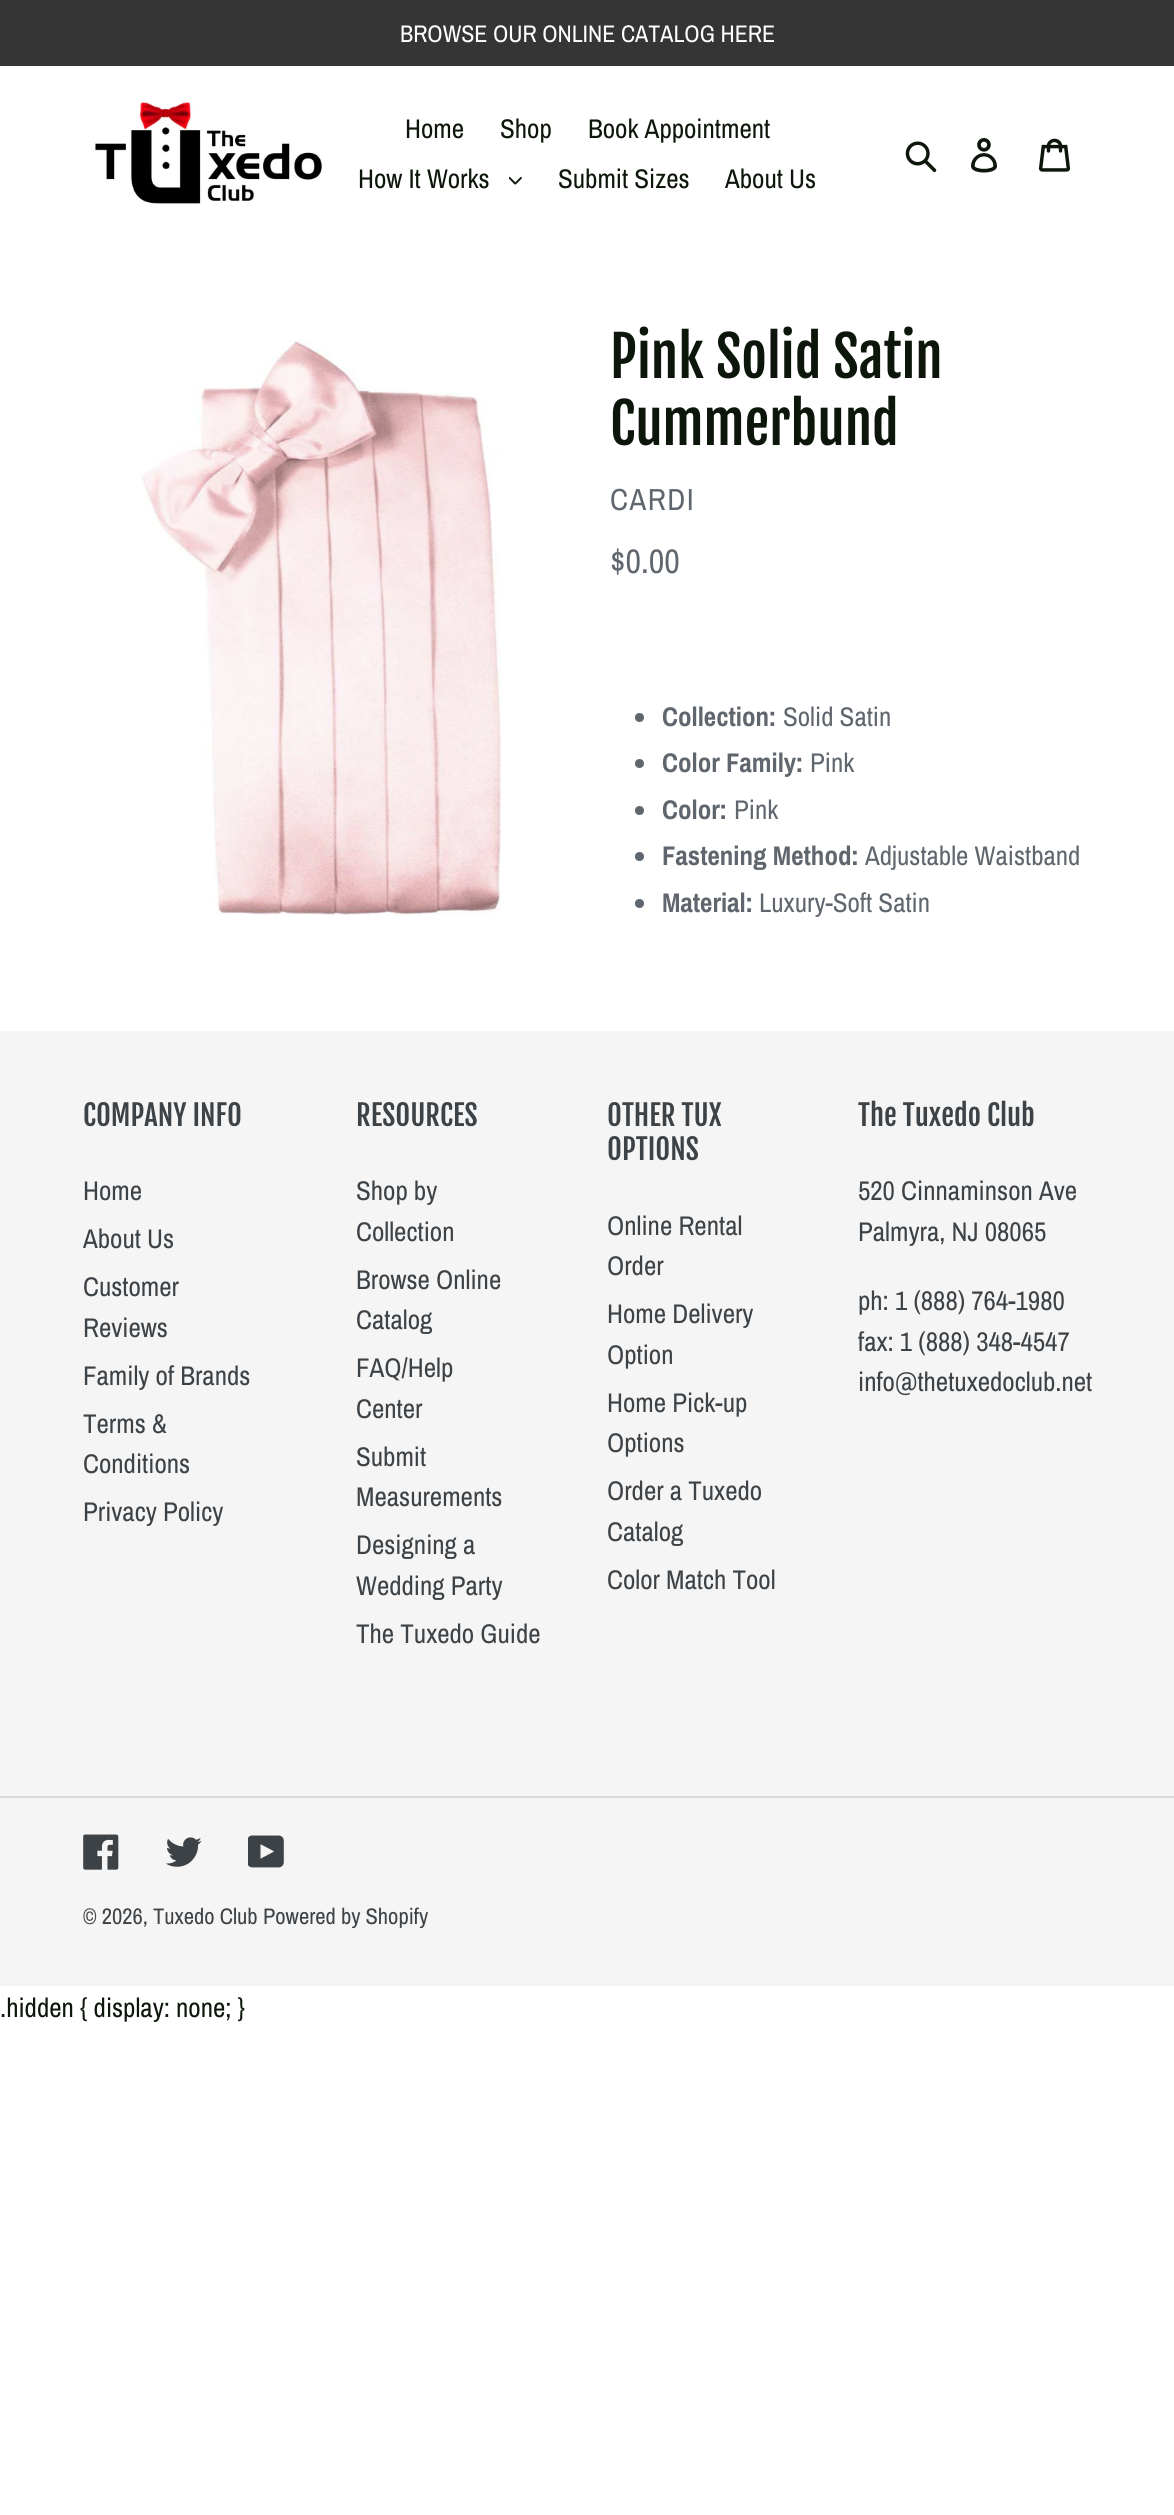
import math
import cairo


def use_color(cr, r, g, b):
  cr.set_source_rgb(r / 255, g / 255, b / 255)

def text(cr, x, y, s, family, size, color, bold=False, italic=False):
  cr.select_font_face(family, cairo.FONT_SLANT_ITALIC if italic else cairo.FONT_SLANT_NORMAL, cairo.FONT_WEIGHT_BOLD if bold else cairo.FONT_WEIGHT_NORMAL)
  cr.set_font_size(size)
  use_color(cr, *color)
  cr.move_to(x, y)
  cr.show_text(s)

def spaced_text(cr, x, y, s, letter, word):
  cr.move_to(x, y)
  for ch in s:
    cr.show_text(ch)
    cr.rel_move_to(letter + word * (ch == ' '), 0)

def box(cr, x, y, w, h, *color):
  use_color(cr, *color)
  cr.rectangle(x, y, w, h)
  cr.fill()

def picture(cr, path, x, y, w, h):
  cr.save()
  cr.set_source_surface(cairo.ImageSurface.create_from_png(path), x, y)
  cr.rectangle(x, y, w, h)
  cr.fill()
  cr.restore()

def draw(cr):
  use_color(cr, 255, 255, 255)
  cr.paint()
  box(cr, 0, 0, 1174, 66, 53, 53, 53)
  picture(cr, "img_01.png", 95, 100, 228, 104)
  picture(cr, "img_02.png", 509, 176, 13, 9)
  picture(cr, "img_03.png", 905, 141, 32, 32)
  picture(cr, "img_04.png", 971, 138, 26, 35)
  picture(cr, "img_05.png", 1038, 138, 32, 34)
  picture(cr, "img_06.png", 141, 340, 361, 576)
  use_color(cr, 96, 102, 110)
  cr.arc(639.5, 717.5, 4.5, 0, 2 * math.pi)
  cr.fill()
  cr.arc(639.5, 763.5, 4.5, 0, 2 * math.pi)
  cr.fill()
  cr.arc(639.5, 810.5, 4.5, 0, 2 * math.pi)
  cr.fill()
  cr.arc(639.5, 856.5, 4.5, 0, 2 * math.pi)
  cr.fill()
  cr.arc(639.5, 903.5, 4.5, 0, 2 * math.pi)
  cr.fill()
  box(cr, 0, 1031, 1174, 955, 245, 245, 245)
  box(cr, 0, 1796, 1174, 2, 220, 220, 220)
  picture(cr, "img_07.png", 83, 1834, 36, 36)
  picture(cr, "img_08.png", 165, 1837, 37, 30)
  picture(cr, "img_09.png", 248, 1835, 36, 33)
  text(cr, 400, 42, "BROWSE OUR ONLINE CATALOG HERE", "Archivo Narrow", 24, (255, 255, 255))
  text(cr, 405, 138, "Home", "Archivo Narrow", 27, (13, 22, 10))
  text(cr, 500, 138, "Shop", "Archivo Narrow", 27, (13, 22, 10))
  text(cr, 588, 138, "Book Appointment", "Archivo Narrow", 27, (13, 22, 10))
  text(cr, 358, 188, "How It Works", "Archivo Narrow", 27, (13, 22, 10))
  text(cr, 558, 188, "Submit Sizes", "Archivo Narrow", 27, (13, 22, 10))
  text(cr, 725, 188, "About Us", "Archivo Narrow", 27, (13, 22, 10))
  text(cr, 610, 378, "Pink Solid Satin", "Fjalla One", 55.5, (13, 22, 10))
  text(cr, 610, 445, "Cummerbund", "Fjalla One", 55.5, (13, 22, 10))
  cr.select_font_face("Archivo Narrow")
  cr.set_font_size(30.5)
  use_color(cr, 96, 102, 110)
  spaced_text(cr, 610, 510, "CARDI", 1.5, 0)
  text(cr, 610, 573, "$0.00", "Archivo Narrow", 34, (96, 102, 110))
  text(cr, 662, 726, "Collection:", "Archivo Narrow", 27, (96, 102, 110), bold=True)
  text(cr, 783, 726, "Solid Satin", "Archivo Narrow", 27, (96, 102, 110))
  text(cr, 662, 772, "Color Family:", "Archivo Narrow", 27, (96, 102, 110), bold=True)
  text(cr, 810, 772, "Pink", "Archivo Narrow", 27, (96, 102, 110))
  text(cr, 662, 819, "Color:", "Archivo Narrow", 27, (96, 102, 110), bold=True)
  text(cr, 734, 819, "Pink", "Archivo Narrow", 27, (96, 102, 110))
  text(cr, 662, 865, "Fastening Method:", "Archivo Narrow", 27, (96, 102, 110), bold=True)
  text(cr, 865, 865, "Adjustable Waistband", "Archivo Narrow", 27, (96, 102, 110))
  text(cr, 662, 912, "Material:", "Archivo Narrow", 27, (96, 102, 110), bold=True)
  text(cr, 759, 912, "Luxury-Soft Satin", "Archivo Narrow", 27, (96, 102, 110))
  text(cr, 83, 1126, "COMPANY INFO", "Fjalla One", 28.5, (61, 66, 70))
  text(cr, 83, 1200, "Home", "Archivo Narrow", 27, (61, 66, 70))
  text(cr, 83, 1248, "About Us", "Archivo Narrow", 27, (61, 66, 70))
  text(cr, 83, 1296, "Customer", "Archivo Narrow", 27, (61, 66, 70))
  text(cr, 83, 1337, "Reviews", "Archivo Narrow", 27, (61, 66, 70))
  text(cr, 83, 1385, "Family of Brands", "Archivo Narrow", 27, (61, 66, 70))
  text(cr, 83, 1433, "Terms &", "Archivo Narrow", 27, (61, 66, 70))
  text(cr, 83, 1473, "Conditions", "Archivo Narrow", 27, (61, 66, 70))
  text(cr, 83, 1521, "Privacy Policy", "Archivo Narrow", 27, (61, 66, 70))
  text(cr, 356, 1126, "RESOURCES", "Fjalla One", 28.5, (61, 66, 70))
  text(cr, 356, 1200, "Shop by", "Archivo Narrow", 27, (61, 66, 70))
  text(cr, 356, 1241, "Collection", "Archivo Narrow", 27, (61, 66, 70))
  text(cr, 356, 1289, "Browse Online", "Archivo Narrow", 27, (61, 66, 70))
  text(cr, 356, 1329, "Catalog", "Archivo Narrow", 27, (61, 66, 70))
  text(cr, 356, 1377, "FAQ/Help", "Archivo Narrow", 27, (61, 66, 70))
  text(cr, 356, 1418, "Center", "Archivo Narrow", 27, (61, 66, 70))
  text(cr, 356, 1466, "Submit", "Archivo Narrow", 27, (61, 66, 70))
  text(cr, 356, 1506, "Measurements", "Archivo Narrow", 27, (61, 66, 70))
  text(cr, 356, 1554, "Designing a", "Archivo Narrow", 27, (61, 66, 70))
  text(cr, 356, 1595, "Wedding Party", "Archivo Narrow", 27, (61, 66, 70))
  text(cr, 356, 1643, "The Tuxedo Guide", "Archivo Narrow", 27, (61, 66, 70))
  text(cr, 607, 1126, "OTHER TUX", "Fjalla One", 28.5, (61, 66, 70))
  text(cr, 607, 1160, "OPTIONS", "Fjalla One", 28.5, (61, 66, 70))
  text(cr, 607, 1235, "Online Rental", "Archivo Narrow", 27, (61, 66, 70))
  text(cr, 607, 1275, "Order", "Archivo Narrow", 27, (61, 66, 70))
  text(cr, 607, 1323, "Home Delivery", "Archivo Narrow", 27, (61, 66, 70))
  text(cr, 607, 1364, "Option", "Archivo Narrow", 27, (61, 66, 70))
  text(cr, 607, 1412, "Home Pick-up", "Archivo Narrow", 27, (61, 66, 70))
  text(cr, 607, 1452, "Options", "Archivo Narrow", 27, (61, 66, 70))
  text(cr, 607, 1500, "Order a Tuxedo", "Archivo Narrow", 27, (61, 66, 70))
  text(cr, 607, 1541, "Catalog", "Archivo Narrow", 27, (61, 66, 70))
  text(cr, 607, 1589, "Color Match Tool", "Archivo Narrow", 27, (61, 66, 70))
  text(cr, 858, 1126, "The Tuxedo Club", "Fjalla One", 28.5, (61, 66, 70))
  text(cr, 858, 1200, "520 Cinnaminson Ave", "Archivo Narrow", 27, (61, 66, 70))
  text(cr, 858, 1241, "Palmyra, NJ 08065", "Archivo Narrow", 27, (61, 66, 70))
  text(cr, 858, 1310, "ph: 1 (888) 764-1980", "Archivo Narrow", 27, (61, 66, 70))
  text(cr, 858, 1351, "fax: 1 (888) 348-4547", "Archivo Narrow", 27, (61, 66, 70))
  text(cr, 858, 1391, "info@thetuxedoclub.net", "Archivo Narrow", 27, (61, 66, 70))
  text(cr, 83, 1924, "© 2026, Tuxedo Club", "Archivo Narrow", 22.5, (61, 66, 70))
  text(cr, 263, 1924, "Powered by Shopify", "Archivo Narrow", 22.5, (61, 66, 70))
  text(cr, 0, 2017, ".hidden { display: none; }", "Archivo Narrow", 27, (13, 22, 10))


surface = cairo.ImageSurface(cairo.FORMAT_RGB24, 1174, 2515)
cr = cairo.Context(surface)
options = cairo.FontOptions()
options.set_hint_metrics(cairo.HINT_METRICS_OFF)
options.set_hint_style(cairo.HINT_STYLE_NONE)
cr.set_font_options(options)
cr.set_miter_limit(4)
draw(cr)
surface.write_to_png("out.png")
